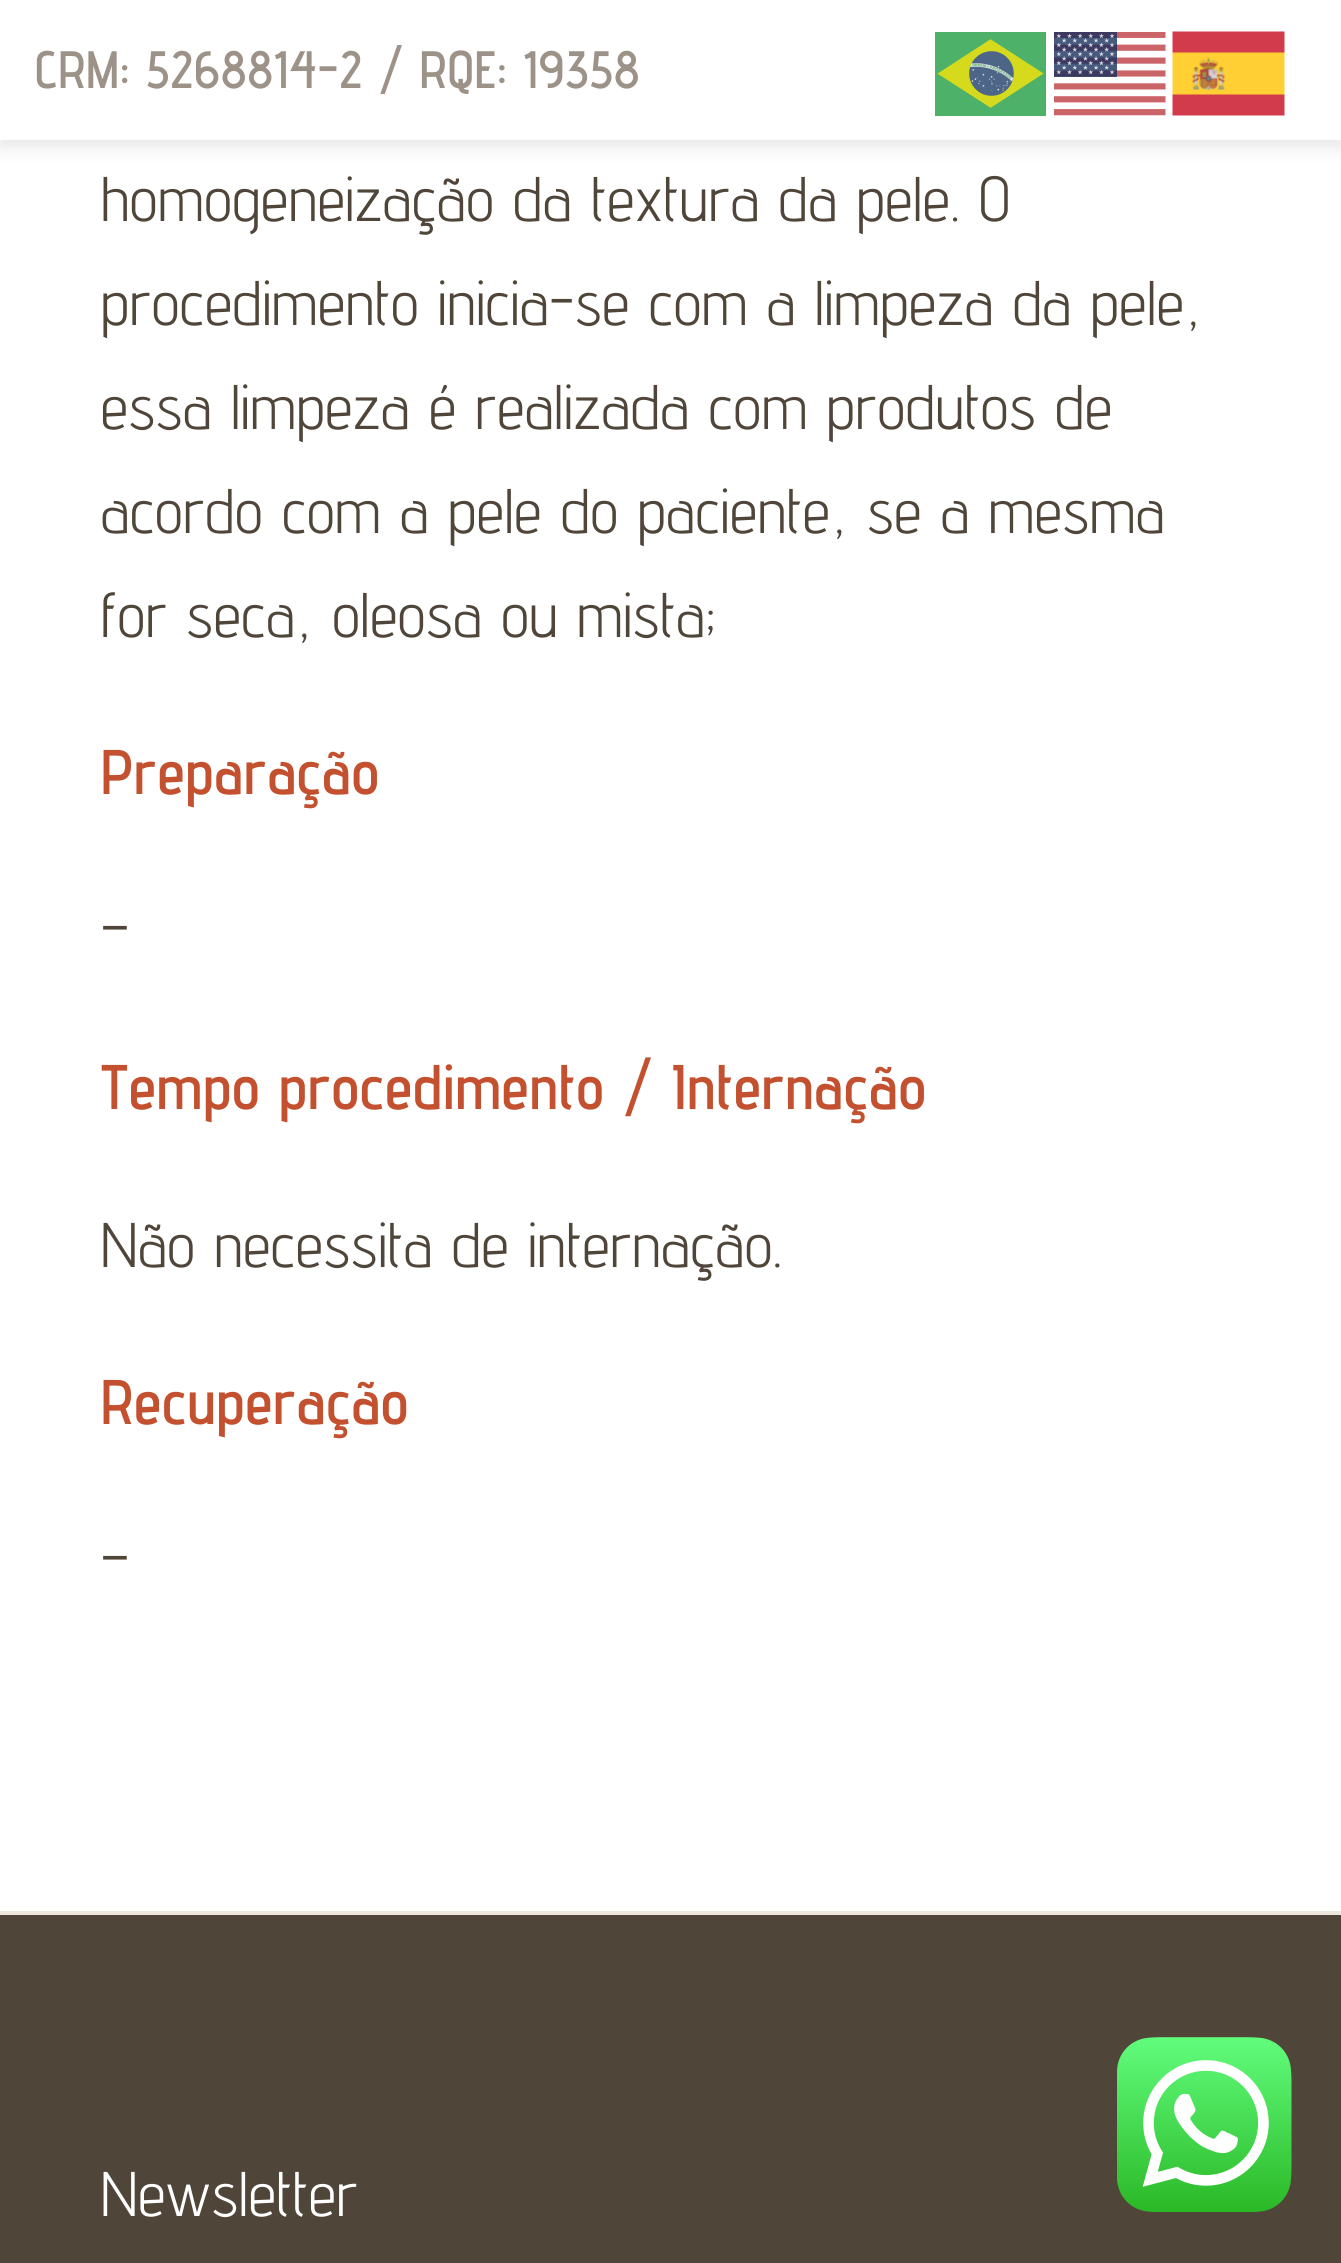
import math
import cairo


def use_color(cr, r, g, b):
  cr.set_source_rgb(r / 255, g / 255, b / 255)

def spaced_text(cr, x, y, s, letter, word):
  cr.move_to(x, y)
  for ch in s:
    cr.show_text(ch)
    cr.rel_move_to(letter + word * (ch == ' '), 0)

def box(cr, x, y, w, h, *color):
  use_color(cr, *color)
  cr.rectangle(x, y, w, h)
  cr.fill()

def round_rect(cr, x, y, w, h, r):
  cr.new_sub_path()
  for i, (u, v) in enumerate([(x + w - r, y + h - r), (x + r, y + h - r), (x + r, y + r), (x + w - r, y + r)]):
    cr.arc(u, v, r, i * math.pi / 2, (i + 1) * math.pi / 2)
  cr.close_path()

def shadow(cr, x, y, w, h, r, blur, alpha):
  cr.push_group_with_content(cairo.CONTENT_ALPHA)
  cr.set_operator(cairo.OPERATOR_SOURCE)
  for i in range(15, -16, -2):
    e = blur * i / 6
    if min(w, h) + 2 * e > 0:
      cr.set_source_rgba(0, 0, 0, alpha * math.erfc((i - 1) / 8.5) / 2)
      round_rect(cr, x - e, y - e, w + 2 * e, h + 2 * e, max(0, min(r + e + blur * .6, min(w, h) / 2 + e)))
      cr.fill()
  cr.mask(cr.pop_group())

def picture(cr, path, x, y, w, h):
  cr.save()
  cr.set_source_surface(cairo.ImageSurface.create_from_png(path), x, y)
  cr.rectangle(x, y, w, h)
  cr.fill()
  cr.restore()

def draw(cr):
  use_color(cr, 255, 255, 255)
  cr.paint()
  use_color(cr, 0, 0, 0)
  shadow(cr, 0, 7, 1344, 140, 0, 9, 0.1)
  box(cr, 0, 0, 1341, 140, 255, 255, 255)
  picture(cr, "img_01.png", 935, 32, 111, 84)
  picture(cr, "img_02.png", 1054, 32, 112, 84)
  picture(cr, "img_03.png", 1172, 31, 113, 85)
  box(cr, 0, 1915, 1341, 348, 79, 69, 57)
  box(cr, 0, 1911, 1341, 4, 235, 232, 226)
  picture(cr, "img_04.png", 1117, 2037, 175, 175)
  cr.select_font_face("Advent Pro SemiBold")
  cr.set_font_size(52.5)
  use_color(cr, 156, 146, 136)
  spaced_text(cr, 35, 88, "CRM: 5268814-2 / RQE: 19358", 1.05, 0)
  cr.select_font_face("Advent Pro")
  cr.set_font_size(63)
  use_color(cr, 79, 69, 57)
  spaced_text(cr, 101, 221, "homogeneização da textura da pele. O", 1.05, 0)
  spaced_text(cr, 101, 325, "procedimento inicia-se com a limpeza da pele,", 1.05, 0)
  spaced_text(cr, 101, 429, "essa limpeza é realizada com produtos de", 1.05, 0)
  spaced_text(cr, 101, 533, "acordo com a pele do paciente, se a mesma", 1.05, 0)
  spaced_text(cr, 101, 637, "for seca, oleosa ou mista;", 1.05, 0)
  cr.select_font_face("Advent Pro SemiBold")
  use_color(cr, 195, 81, 47)
  spaced_text(cr, 101, 794, "Preparação", 1.05, 0)
  cr.select_font_face("Advent Pro")
  use_color(cr, 79, 69, 57)
  spaced_text(cr, 101, 952, "–", 1.05, 0)
  cr.select_font_face("Advent Pro SemiBold")
  use_color(cr, 195, 81, 47)
  spaced_text(cr, 101, 1109, "Tempo procedimento / Internação", 1.05, 0)
  cr.select_font_face("Advent Pro")
  use_color(cr, 79, 69, 57)
  spaced_text(cr, 101, 1267, "Não necessita de internação.", 1.05, 0)
  cr.select_font_face("Advent Pro SemiBold")
  use_color(cr, 195, 81, 47)
  spaced_text(cr, 101, 1424, "Recuperação", 1.05, 0)
  cr.select_font_face("Advent Pro")
  use_color(cr, 79, 69, 57)
  spaced_text(cr, 101, 1582, "–", 1.05, 0)
  use_color(cr, 255, 255, 255)
  spaced_text(cr, 101, 2216, "Newsletter", 1.05, 0)


surface = cairo.ImageSurface(cairo.FORMAT_RGB24, 1341, 2263)
cr = cairo.Context(surface)
options = cairo.FontOptions()
options.set_hint_metrics(cairo.HINT_METRICS_OFF)
options.set_hint_style(cairo.HINT_STYLE_NONE)
cr.set_font_options(options)
cr.set_miter_limit(4)
draw(cr)
surface.write_to_png("out.png")
